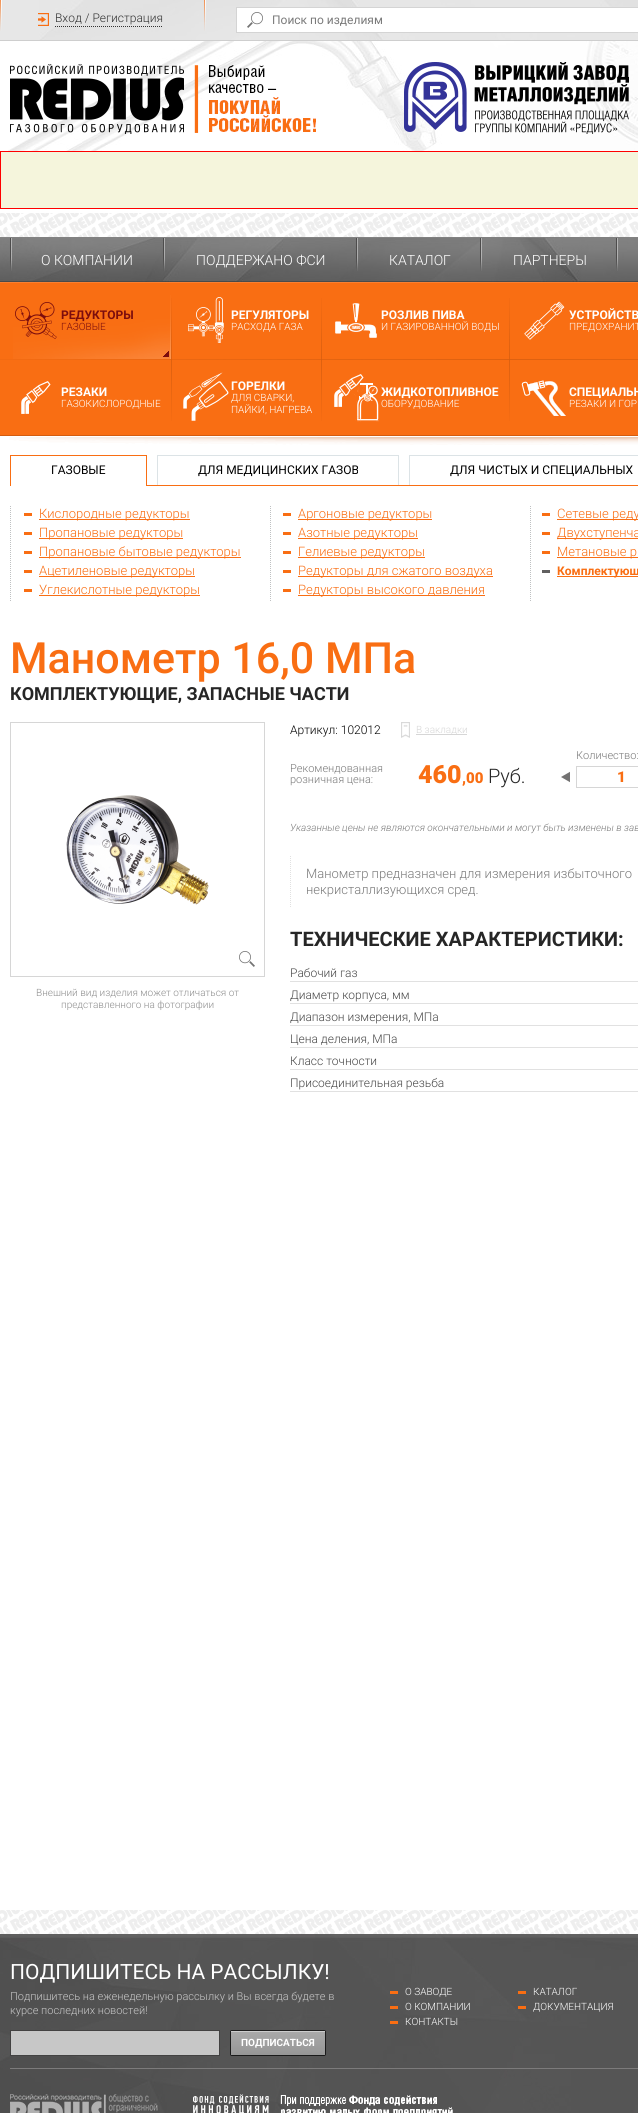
import math
import cairo


def use_color(cr, r, g, b):
  cr.set_source_rgb(r / 255, g / 255, b / 255)

def text(cr, x, y, s, family, size, color, bold=False, italic=False):
  cr.select_font_face(family, cairo.FONT_SLANT_ITALIC if italic else cairo.FONT_SLANT_NORMAL, cairo.FONT_WEIGHT_BOLD if bold else cairo.FONT_WEIGHT_NORMAL)
  cr.set_font_size(size)
  use_color(cr, *color)
  cr.move_to(x, y)
  cr.show_text(s)

def box(cr, x, y, w, h, *color):
  use_color(cr, *color)
  cr.rectangle(x, y, w, h)
  cr.fill()

def round_rect(cr, x, y, w, h, r):
  cr.new_sub_path()
  for i, (u, v) in enumerate([(x + w - r, y + h - r), (x + r, y + h - r), (x + r, y + r), (x + w - r, y + r)]):
    cr.arc(u, v, r, i * math.pi / 2, (i + 1) * math.pi / 2)
  cr.close_path()

def picture(cr, path, x, y, w, h):
  cr.save()
  cr.set_source_surface(cairo.ImageSurface.create_from_png(path), x, y)
  cr.rectangle(x, y, w, h)
  cr.fill()
  cr.restore()

def draw(cr):
  use_color(cr, 255, 255, 255)
  cr.paint()
  picture(cr, "img_01.png", 9, 437, 629, 8)
  box(cr, 0, 0, 39, 40, 231, 231, 231)
  picture(cr, "img_02.png", 39, 0, 599, 40)
  box(cr, 0, 40, 638, 1, 206, 206, 206)
  picture(cr, "img_03.png", 204, 0, 2, 31)
  picture(cr, "img_04.png", 0, 0, 2, 31)
  cr.new_path()
  cr.move_to(55, 26.5)
  cr.line_to(163, 26.5)
  use_color(cr, 50, 50, 50)
  cr.set_line_width(1)
  cr.set_dash([1, 1])
  cr.stroke()
  picture(cr, "img_05.png", 38, 13, 11, 13)
  box(cr, 237, 8, 401, 24, 255, 255, 255)
  picture(cr, "img_06.png", 247, 12, 16, 16)
  cr.rectangle(236.5, 7.5, 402, 25)
  use_color(cr, 212, 212, 212)
  cr.set_dash([])
  cr.stroke()
  picture(cr, "img_07.png", 8, 41, 630, 110)
  use_color(cr, 245, 245, 220)
  cr.rectangle(0.5, 151.5, 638, 57)
  cr.fill_preserve()
  use_color(cr, 255, 0, 0)
  cr.stroke()
  picture(cr, "img_08.png", 0, 237, 638, 45)
  picture(cr, "img_09.png", 0, 213, 638, 24)
  picture(cr, "img_10.png", 10, 238, 2, 33)
  picture(cr, "img_11.png", 163, 238, 2, 33)
  picture(cr, "img_12.png", 356, 238, 2, 33)
  picture(cr, "img_13.png", 480, 238, 2, 33)
  picture(cr, "img_14.png", 616, 238, 2, 33)
  box(cr, 0, 283, 638, 152, 249, 110, 19)
  picture(cr, "img_15.png", 0, 359, 638, 1)
  box(cr, 0, 282, 638, 1, 250, 128, 49)
  box(cr, 0, 435, 638, 1, 211, 92, 15)
  picture(cr, "img_16.png", 171, 298, 1, 61)
  picture(cr, "img_17.png", 13, 295, 158, 64)
  picture(cr, "img_18.png", 15, 302, 42, 37)
  picture(cr, "img_19.png", 163, 351, 6, 6)
  picture(cr, "img_16.png", 321, 298, 1, 61)
  picture(cr, "img_20.png", 188, 297, 36, 46)
  picture(cr, "img_16.png", 509, 298, 1, 61)
  picture(cr, "img_21.png", 335, 303, 42, 35)
  picture(cr, "img_22.png", 524, 301, 41, 39)
  picture(cr, "img_23.png", 171, 359, 1, 62)
  picture(cr, "img_24.png", 21, 381, 30, 33)
  picture(cr, "img_25.png", 321, 359, 1, 62)
  picture(cr, "img_26.png", 183, 372, 46, 49)
  picture(cr, "img_27.png", 509, 359, 1, 62)
  picture(cr, "img_28.png", 334, 374, 45, 48)
  picture(cr, "img_29.png", 521, 380, 45, 36)
  box(cr, 147, 485, 491, 1, 249, 110, 19)
  box(cr, 10, 455, 137, 1, 249, 110, 19)
  box(cr, 146, 455, 1, 31, 249, 110, 19)
  box(cr, 10, 455, 1, 31, 249, 110, 19)
  box(cr, 157, 455, 242, 1, 220, 227, 230)
  box(cr, 398, 455, 1, 30, 220, 227, 230)
  box(cr, 157, 455, 1, 30, 220, 227, 230)
  box(cr, 409, 455, 229, 1, 220, 227, 230)
  box(cr, 409, 455, 1, 30, 220, 227, 230)
  cr.new_path()
  cr.move_to(10.5, 506)
  cr.line_to(10.5, 601)
  use_color(cr, 191, 193, 194)
  cr.set_dash([1, 1])
  cr.stroke()
  box(cr, 24, 513, 8, 3, 249, 110, 19)
  box(cr, 39, 519, 151, 1, 249, 110, 19)
  box(cr, 24, 532, 8, 3, 249, 110, 19)
  box(cr, 39, 538, 144, 1, 249, 110, 19)
  box(cr, 24, 551, 8, 3, 249, 110, 19)
  box(cr, 39, 557, 202, 1, 249, 110, 19)
  box(cr, 24, 570, 8, 3, 249, 110, 19)
  box(cr, 39, 576, 156, 1, 249, 110, 19)
  box(cr, 24, 589, 8, 3, 249, 110, 19)
  box(cr, 39, 595, 161, 1, 249, 110, 19)
  cr.new_path()
  cr.move_to(530.5, 506)
  cr.line_to(530.5, 601)
  use_color(cr, 191, 193, 194)
  cr.stroke()
  cr.new_path()
  cr.move_to(270.5, 506)
  cr.line_to(270.5, 601)
  cr.stroke()
  box(cr, 283, 513, 8, 3, 249, 110, 19)
  box(cr, 298, 519, 134, 1, 249, 110, 19)
  box(cr, 283, 532, 8, 3, 249, 110, 19)
  box(cr, 298, 538, 120, 1, 249, 110, 19)
  box(cr, 283, 551, 8, 3, 249, 110, 19)
  box(cr, 298, 557, 127, 1, 249, 110, 19)
  box(cr, 283, 570, 8, 3, 249, 110, 19)
  box(cr, 298, 576, 195, 1, 249, 110, 19)
  box(cr, 283, 589, 8, 3, 249, 110, 19)
  box(cr, 298, 595, 187, 1, 249, 110, 19)
  box(cr, 542, 513, 8, 3, 249, 110, 19)
  box(cr, 557, 519, 81, 1, 249, 110, 19)
  box(cr, 542, 532, 8, 3, 249, 110, 19)
  box(cr, 557, 538, 81, 1, 249, 110, 19)
  box(cr, 542, 551, 8, 3, 249, 110, 19)
  box(cr, 557, 557, 81, 1, 249, 110, 19)
  box(cr, 542, 570, 8, 3, 97, 96, 96)
  box(cr, 557, 576, 81, 1, 249, 110, 19)
  cr.rectangle(10.5, 722.5, 254, 254)
  use_color(cr, 214, 214, 214)
  cr.set_dash([])
  cr.stroke()
  picture(cr, "img_30.png", 66, 795, 143, 110)
  picture(cr, "img_31.png", 239, 951, 16, 16)
  picture(cr, "img_32.png", 401, 722, 9, 16)
  box(cr, 416, 734, 51, 1, 214, 214, 214)
  picture(cr, "img_33.png", 561, 771, 9, 12)
  cr.rectangle(576.5, 766.5, 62, 21)
  cr.stroke()
  cr.new_path()
  cr.move_to(290.5, 856)
  cr.line_to(290.5, 908)
  use_color(cr, 225, 225, 225)
  cr.set_dash([1, 1])
  cr.stroke()
  box(cr, 290, 981, 348, 1, 225, 225, 225)
  box(cr, 290, 1003, 348, 1, 225, 225, 225)
  box(cr, 290, 1025, 348, 1, 225, 225, 225)
  box(cr, 290, 1047, 348, 1, 225, 225, 225)
  box(cr, 290, 1069, 348, 1, 225, 225, 225)
  box(cr, 290, 1091, 348, 1, 225, 225, 225)
  picture(cr, "img_34.png", 0, 1934, 638, 179)
  picture(cr, "img_09.png", 0, 1910, 638, 24)
  box(cr, 10, 2068, 628, 1, 124, 123, 123)
  use_color(cr, 199, 199, 199)
  cr.rectangle(10.5, 2030.5, 209, 25)
  cr.fill_preserve()
  use_color(cr, 67, 66, 66)
  cr.set_dash([])
  cr.stroke()
  cr.set_source_rgba(0, 0, 0, 0.4)
  round_rect(cr, 230, 2030, 96, 26, 2)
  cr.fill()
  gradient = cairo.LinearGradient(278, 2030, 278, 2056)
  gradient.add_color_stop_rgba(0, 0, 0, 0, 0.4)
  gradient.add_color_stop_rgba(1, 0, 0, 0, 0.5)
  cr.set_source(gradient)
  round_rect(cr, 230, 2030, 96, 26, 2)
  cr.fill()
  gradient = cairo.LinearGradient(278, 2031, 278, 2055)
  gradient.add_color_stop_rgba(0, 0.667, 0.667, 0.667, 1)
  gradient.add_color_stop_rgba(1, 0.588, 0.588, 0.588, 1)
  cr.set_source(gradient)
  cr.rectangle(231, 2032, 94, 23)
  cr.fill()
  box(cr, 231, 2031, 94, 1, 204, 204, 204)
  box(cr, 390, 1991, 8, 3, 249, 110, 19)
  box(cr, 518, 1991, 8, 3, 249, 110, 19)
  box(cr, 390, 2006, 8, 3, 249, 110, 19)
  box(cr, 518, 2006, 8, 3, 249, 110, 19)
  box(cr, 390, 2021, 8, 3, 249, 110, 19)
  picture(cr, "img_35.png", 10, 2094, 148, 19)
  picture(cr, "img_36.png", 193, 2094, 260, 19)
  text(cr, 55, 22, "Вход / Регистрация", "Roboto Light", 12, (50, 50, 50))
  text(cr, 272, 24, "Поиск по изделиям", "Roboto", 12, (122, 122, 122))
  text(cr, 41, 265, "О КОМПАНИИ", "Roboto Light", 14, (255, 255, 255))
  text(cr, 196, 265, "ПОДДЕРЖАНО ФСИ", "Roboto Light", 14, (255, 255, 255))
  text(cr, 389, 265, "КАТАЛОГ", "Roboto Light", 14, (255, 255, 255))
  text(cr, 513, 265, "ПАРТНЕРЫ", "Roboto Light", 14, (255, 255, 255))
  text(cr, 61, 319, "РЕДУКТОРЫ", "Roboto", 12, (124, 13, 13), bold=True)
  text(cr, 61, 330, "ГАЗОВЫЕ", "Roboto Light", 10, (124, 13, 13))
  text(cr, 231, 319, "РЕГУЛЯТОРЫ", "Roboto", 12, (255, 255, 255), bold=True)
  text(cr, 231, 330, "РАСХОДА ГАЗА", "Roboto Light", 10, (255, 255, 255))
  text(cr, 381, 319, "РОЗЛИВ ПИВА", "Roboto", 12, (255, 255, 255), bold=True)
  text(cr, 381, 330, "И ГАЗИРОВАННОЙ ВОДЫ", "Roboto Light", 10, (255, 255, 255))
  text(cr, 569, 319, "УСТРОЙСТВ", "Roboto", 12, (255, 255, 255), bold=True)
  text(cr, 569, 330, "ПРЕДОХРАНИТ", "Roboto Light", 10, (255, 255, 255))
  text(cr, 61, 396, "РЕЗАКИ", "Roboto", 12, (255, 255, 255), bold=True)
  text(cr, 61, 407, "ГАЗОКИСЛОРОДНЫЕ", "Roboto Light", 10, (255, 255, 255))
  text(cr, 231, 390, "ГОРЕЛКИ", "Roboto", 12, (255, 255, 255), bold=True)
  text(cr, 231, 401, "ДЛЯ СВАРКИ,", "Roboto Light", 10, (255, 255, 255))
  text(cr, 231, 413, "ПАЙКИ, НАГРЕВА", "Roboto Light", 10, (255, 255, 255))
  text(cr, 381, 396, "ЖИДКОТОПЛИВНОЕ", "Roboto", 12, (255, 255, 255), bold=True)
  text(cr, 381, 407, "ОБОРУДОВАНИЕ", "Roboto Light", 10, (255, 255, 255))
  text(cr, 569, 396, "СПЕЦИАЛЬН", "Roboto", 12, (255, 255, 255), bold=True)
  text(cr, 569, 407, "РЕЗАКИ И ГОР", "Roboto Light", 10, (255, 255, 255))
  text(cr, 51, 474, "ГАЗОВЫЕ", "Roboto", 12, (0, 0, 0))
  text(cr, 198, 474, "ДЛЯ МЕДИЦИНСКИХ ГАЗОВ", "Roboto", 12, (0, 0, 0))
  text(cr, 450, 474, "ДЛЯ ЧИСТЫХ И СПЕЦИАЛЬНЫХ", "Roboto", 12, (0, 0, 0))
  text(cr, 39, 518, "Кислородные редукторы", "Roboto Light", 13, (249, 110, 19))
  text(cr, 39, 537, "Пропановые редукторы", "Roboto Light", 13, (249, 110, 19))
  text(cr, 39, 556, "Пропановые бытовые редукторы", "Roboto Light", 13, (249, 110, 19))
  text(cr, 39, 575, "Ацетиленовые редукторы", "Roboto Light", 13, (249, 110, 19))
  text(cr, 39, 594, "Углекислотные редукторы", "Roboto Light", 13, (249, 110, 19))
  text(cr, 298, 518, "Аргоновые редукторы", "Roboto Light", 13, (249, 110, 19))
  text(cr, 298, 537, "Азотные редукторы", "Roboto Light", 13, (249, 110, 19))
  text(cr, 298, 556, "Гелиевые редукторы", "Roboto Light", 13, (249, 110, 19))
  text(cr, 298, 575, "Редукторы для сжатого воздуха", "Roboto Light", 13, (249, 110, 19))
  text(cr, 298, 594, "Редукторы высокого давления", "Roboto Light", 13, (249, 110, 19))
  text(cr, 557, 518, "Сетевые реду", "Roboto Light", 13, (249, 110, 19))
  text(cr, 557, 537, "Двухступенча", "Roboto Light", 13, (249, 110, 19))
  text(cr, 557, 556, "Метановые р", "Roboto Light", 13, (249, 110, 19))
  text(cr, 557, 575, "Комплектующ", "Roboto", 12, (249, 110, 19), bold=True)
  text(cr, 10, 673, "Манометр 16,0 МПа", "Roboto Medium", 43, (249, 110, 19))
  text(cr, 10, 700, "КОМПЛЕКТУЮЩИЕ, ЗАПАСНЫЕ ЧАСТИ", "Roboto", 18, (38, 38, 38), bold=True)
  text(cr, 36, 996, "Внешний вид изделия может отличаться от", "Roboto Light", 10, (142, 142, 142))
  text(cr, 61, 1008, "представленного на фотографии", "Roboto Light", 10, (142, 142, 142))
  text(cr, 290, 734, "Артикул: 102012", "Roboto Light", 12, (0, 0, 0))
  text(cr, 416, 733, "В закладки", "Roboto Light", 10, (214, 214, 214))
  text(cr, 290, 772, "Рекомендованная", "Roboto Light", 11, (122, 122, 122))
  text(cr, 290, 783, "розничная цена:", "Roboto Light", 11, (122, 122, 122))
  text(cr, 418, 783, "460", "Roboto Black", 25, (249, 110, 19))
  text(cr, 462, 783, ",00", "Roboto Black", 15, (249, 110, 19))
  text(cr, 488, 783, "Руб.", "Roboto Light", 20, (38, 38, 38))
  text(cr, 576, 759, "Количество:", "Roboto Light", 11, (122, 122, 122))
  text(cr, 617, 782, "1", "Roboto Black", 15, (249, 110, 19))
  text(cr, 290, 831, "Указанные цены не являются окончательными и могут быть изменены в зав", "Roboto Light", 10, (122, 122, 122), italic=True)
  text(cr, 306, 878, "Манометр предназначен для измерения избыточного", "Roboto Light", 13, (122, 122, 122))
  text(cr, 306, 894, "некристаллизующихся сред.", "Roboto Light", 13, (122, 122, 122))
  text(cr, 290, 946, "ТЕХНИЧЕСКИЕ ХАРАКТЕРИСТИКИ:", "Roboto", 20, (38, 38, 38), bold=True)
  text(cr, 290, 977, "Рабочий газ", "Roboto Light", 12, (71, 71, 71))
  text(cr, 290, 999, "Диаметр корпуса, мм", "Roboto Light", 12, (71, 71, 71))
  text(cr, 290, 1021, "Диапазон измерения, МПа", "Roboto Light", 12, (71, 71, 71))
  text(cr, 290, 1043, "Цена деления, МПа", "Roboto Light", 12, (71, 71, 71))
  text(cr, 290, 1065, "Класс точности", "Roboto Light", 12, (71, 71, 71))
  text(cr, 290, 1087, "Присоединительная резьба", "Roboto Light", 12, (71, 71, 71))
  text(cr, 10, 1979, "ПОДПИШИТЕСЬ НА РАССЫЛКУ!", "Roboto", 21, (255, 255, 255))
  text(cr, 10, 2000, "Подпишитесь на еженедельную рассылку и Вы всегда будете в", "Roboto Light", 11, (199, 199, 199))
  text(cr, 10, 2014, "курсе последних новостей!", "Roboto Light", 11, (199, 199, 199))
  text(cr, 241, 2046, "ПОДПИСАТЬСЯ", "Roboto", 10, (255, 255, 255), bold=True)
  text(cr, 405, 1995, "О ЗАВОДЕ", "Roboto Light", 10, (255, 255, 255))
  text(cr, 533, 1995, "КАТАЛОГ", "Roboto Light", 10, (255, 255, 255))
  text(cr, 405, 2010, "О КОМПАНИИ", "Roboto Light", 10, (255, 255, 255))
  text(cr, 533, 2010, "ДОКУМЕНТАЦИЯ", "Roboto Light", 10, (255, 255, 255))
  text(cr, 405, 2025, "КОНТАКТЫ", "Roboto Light", 10, (255, 255, 255))


surface = cairo.ImageSurface(cairo.FORMAT_RGB24, 638, 2113)
cr = cairo.Context(surface)
options = cairo.FontOptions()
options.set_hint_metrics(cairo.HINT_METRICS_OFF)
options.set_hint_style(cairo.HINT_STYLE_NONE)
cr.set_font_options(options)
cr.set_miter_limit(4)
draw(cr)
surface.write_to_png("out.png")
